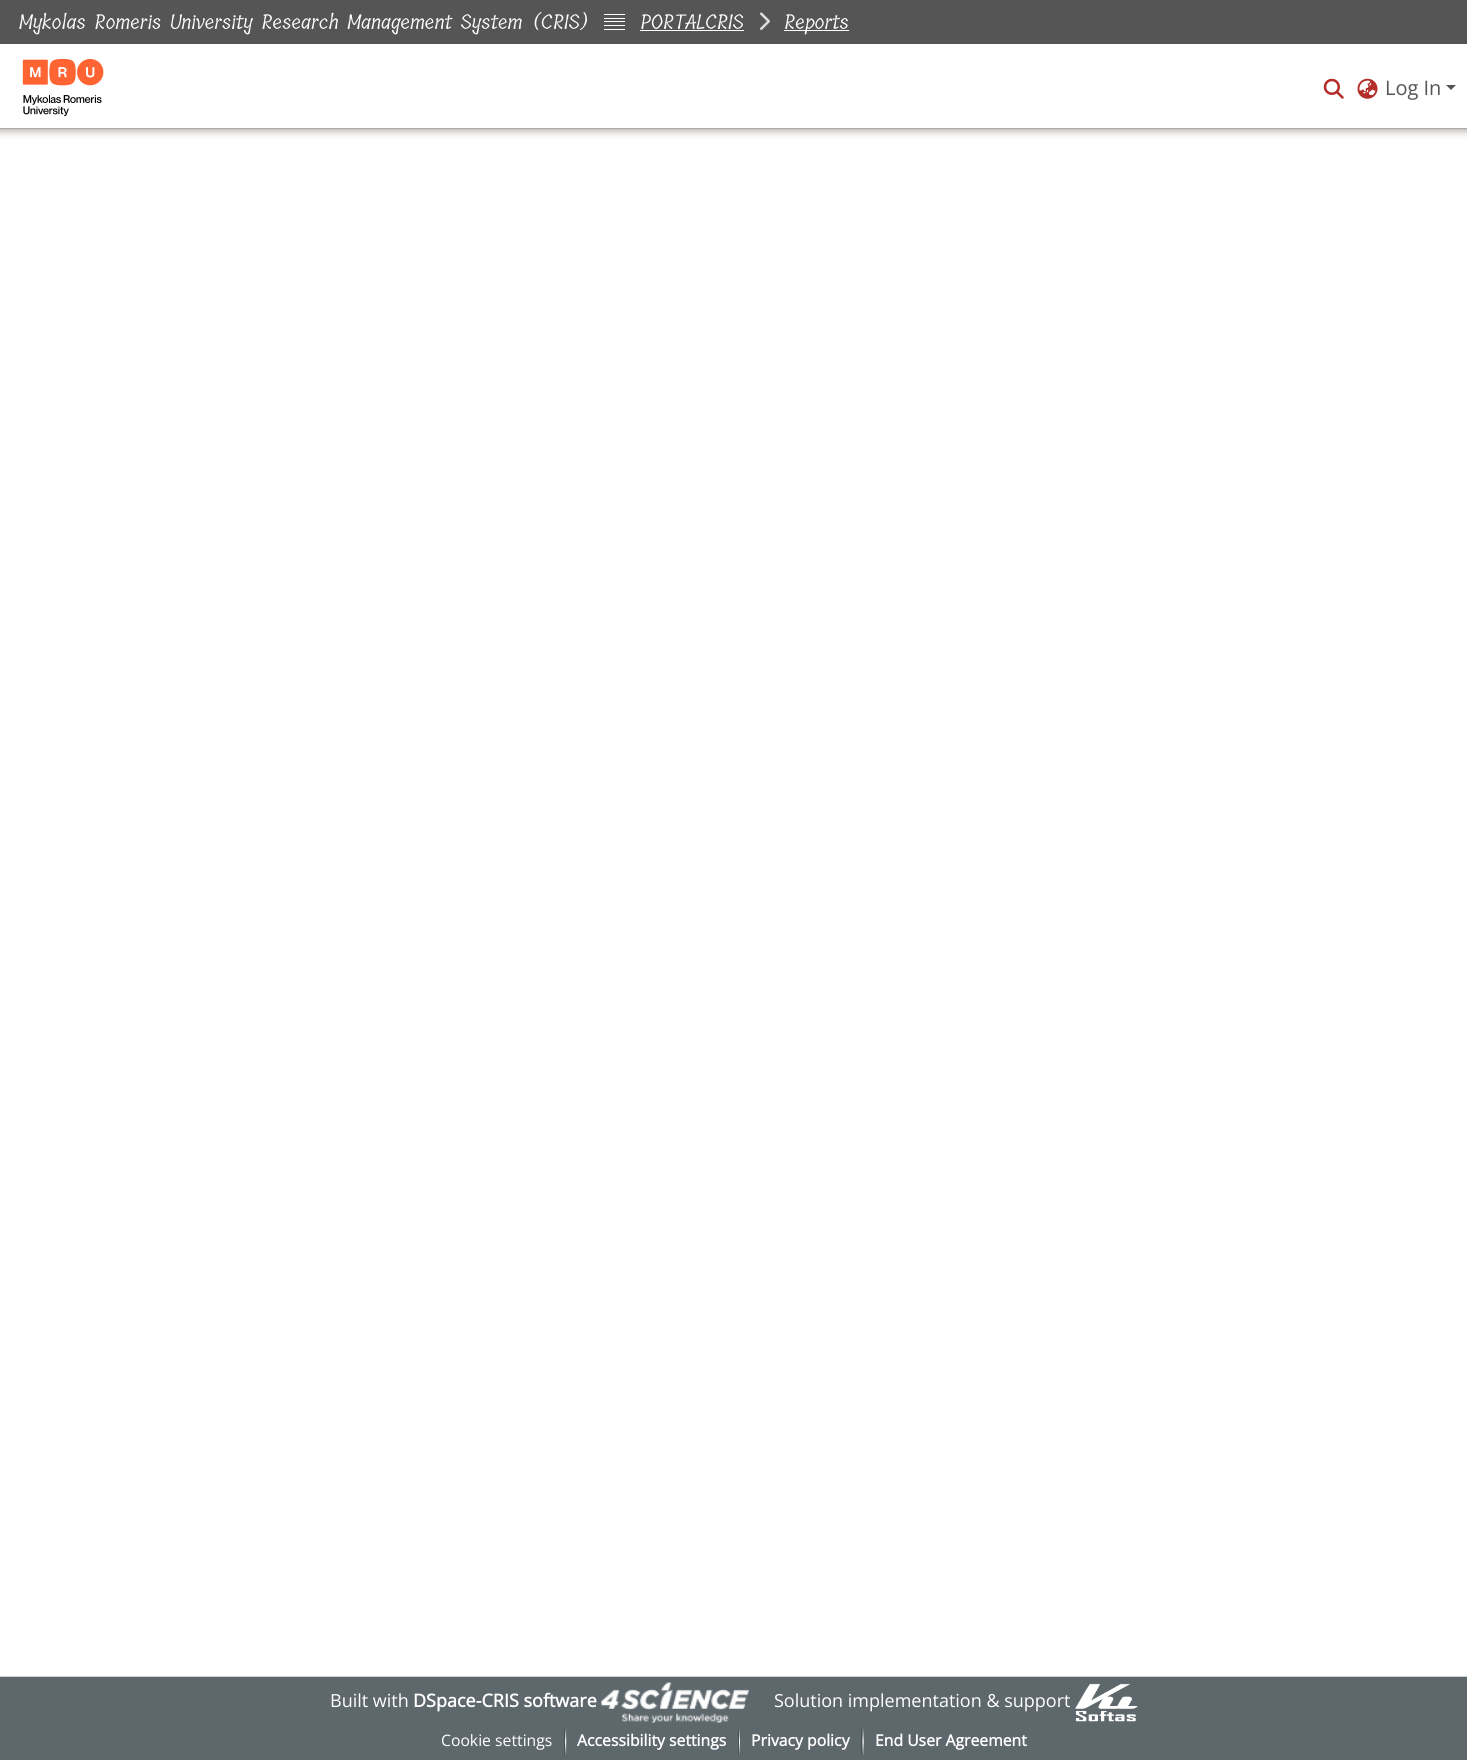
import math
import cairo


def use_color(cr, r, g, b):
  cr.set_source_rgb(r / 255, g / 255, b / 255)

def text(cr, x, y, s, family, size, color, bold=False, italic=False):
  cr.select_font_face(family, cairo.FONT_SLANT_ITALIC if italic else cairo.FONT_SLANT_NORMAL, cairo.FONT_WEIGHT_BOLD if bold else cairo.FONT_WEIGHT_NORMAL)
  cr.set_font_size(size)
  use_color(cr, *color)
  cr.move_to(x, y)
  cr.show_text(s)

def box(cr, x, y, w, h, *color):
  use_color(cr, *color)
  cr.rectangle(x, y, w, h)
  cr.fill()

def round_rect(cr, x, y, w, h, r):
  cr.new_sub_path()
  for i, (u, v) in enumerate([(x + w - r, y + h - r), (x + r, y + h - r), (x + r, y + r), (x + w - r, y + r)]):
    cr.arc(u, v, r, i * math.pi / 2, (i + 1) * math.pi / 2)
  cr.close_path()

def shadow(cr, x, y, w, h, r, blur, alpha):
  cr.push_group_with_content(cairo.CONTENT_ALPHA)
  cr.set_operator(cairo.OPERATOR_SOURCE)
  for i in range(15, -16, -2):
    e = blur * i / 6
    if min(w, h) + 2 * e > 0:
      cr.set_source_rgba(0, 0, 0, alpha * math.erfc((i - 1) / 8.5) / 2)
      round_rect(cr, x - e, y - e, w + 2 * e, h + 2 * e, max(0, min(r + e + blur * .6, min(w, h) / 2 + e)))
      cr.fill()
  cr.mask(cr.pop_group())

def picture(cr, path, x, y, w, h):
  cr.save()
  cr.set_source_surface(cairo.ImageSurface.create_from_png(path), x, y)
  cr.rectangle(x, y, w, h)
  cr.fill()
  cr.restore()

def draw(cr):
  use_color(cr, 255, 255, 255)
  cr.paint()
  use_color(cr, 104, 87, 68)
  shadow(cr, -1, 0, 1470, 131, 0, 4, 0.5)
  box(cr, 0, 44, 1467, 84, 255, 255, 255)
  box(cr, 0, 128, 1467, 1, 170, 170, 170)
  box(cr, 0, 0, 1467, 44, 85, 85, 85)
  box(cr, 604, 14, 21, 1, 255, 255, 255)
  box(cr, 604, 18, 21, 1, 255, 255, 255)
  box(cr, 604, 21, 21, 1, 255, 255, 255)
  box(cr, 604, 25, 21, 1, 255, 255, 255)
  box(cr, 604, 29, 21, 1, 255, 255, 255)
  box(cr, 640, 30, 104, 1, 255, 255, 255)
  picture(cr, "img_01.png", 760, 12, 10, 18)
  box(cr, 784, 30, 65, 1, 255, 255, 255)
  picture(cr, "img_02.png", 22, 58, 82, 59)
  picture(cr, "img_03.png", 1323, 78, 21, 21)
  picture(cr, "img_04.png", 1357, 78, 21, 21)
  use_color(cr, 85, 85, 85)
  cr.new_path()
  cr.move_to(1446, 85)
  cr.line_to(1456, 85)
  cr.line_to(1451, 90)
  cr.close_path()
  cr.fill()
  box(cr, 0, 1677, 1467, 83, 93, 103, 108)
  box(cr, 0, 1676, 1467, 1, 206, 212, 218)
  picture(cr, "img_05.png", 601, 1682, 148, 41)
  picture(cr, "img_06.png", 1075, 1683, 63, 39)
  picture(cr, "img_07.png", 565, 1729, 2, 26)
  box(cr, 564, 1729, 1, 26, 73, 80, 87)
  picture(cr, "img_08.png", 739, 1729, 1, 26)
  box(cr, 738, 1729, 1, 26, 73, 80, 87)
  picture(cr, "img_09.png", 862, 1729, 2, 26)
  box(cr, 861, 1729, 1, 26, 73, 80, 87)
  text(cr, 19, 29, "Mykolas Romeris University Research Management System (CRIS)", "Tillana", 20, (255, 255, 255))
  text(cr, 640, 29, "PORTALCRIS", "Tillana", 20, (255, 255, 255))
  text(cr, 784, 29, "Reports", "Tillana", 20, (255, 255, 255))
  text(cr, 1385, 95, "Log In", "Open Sans", 20, (85, 85, 85))
  text(cr, 330, 1707, "Built with", "Open Sans", 18, (255, 255, 255))
  text(cr, 413, 1707, "DSpace-CRIS software", "Open Sans", 18, (255, 255, 255), bold=True)
  text(cr, 774, 1707, "Solution implementation & support", "Open Sans", 18, (255, 255, 255))
  text(cr, 441, 1746, "Cookie settings", "Open Sans", 15.75, (255, 255, 255))
  text(cr, 577, 1746, "Accessibility settings", "Open Sans", 15.75, (255, 255, 255), bold=True)
  text(cr, 751, 1746, "Privacy policy", "Open Sans", 15.75, (255, 255, 255), bold=True)
  text(cr, 875, 1746, "End User Agreement", "Open Sans", 15.75, (255, 255, 255), bold=True)


surface = cairo.ImageSurface(cairo.FORMAT_RGB24, 1467, 1760)
cr = cairo.Context(surface)
options = cairo.FontOptions()
options.set_hint_metrics(cairo.HINT_METRICS_OFF)
options.set_hint_style(cairo.HINT_STYLE_NONE)
cr.set_font_options(options)
cr.set_miter_limit(4)
draw(cr)
surface.write_to_png("out.png")
